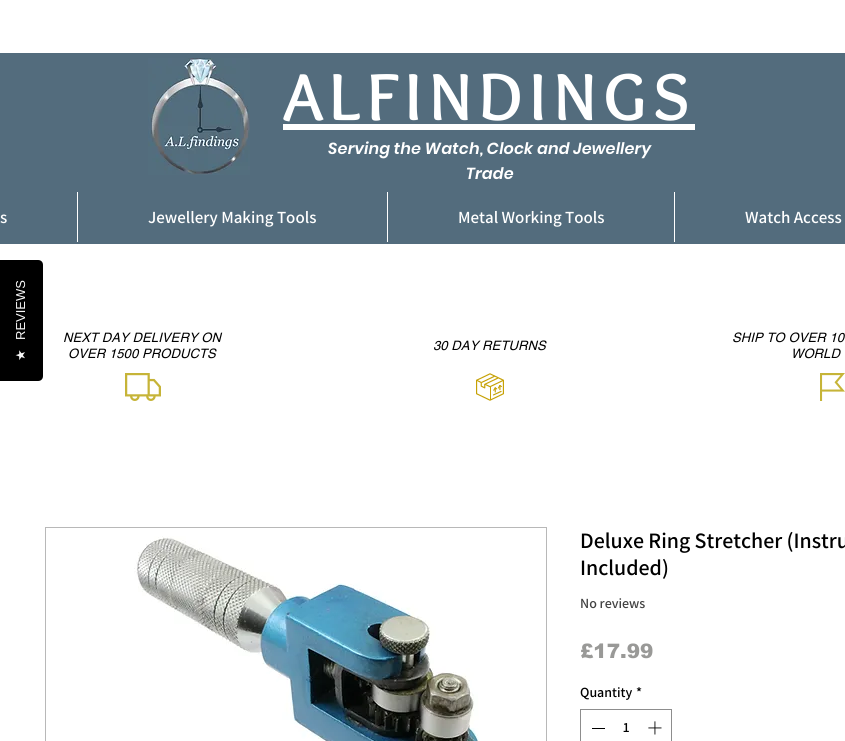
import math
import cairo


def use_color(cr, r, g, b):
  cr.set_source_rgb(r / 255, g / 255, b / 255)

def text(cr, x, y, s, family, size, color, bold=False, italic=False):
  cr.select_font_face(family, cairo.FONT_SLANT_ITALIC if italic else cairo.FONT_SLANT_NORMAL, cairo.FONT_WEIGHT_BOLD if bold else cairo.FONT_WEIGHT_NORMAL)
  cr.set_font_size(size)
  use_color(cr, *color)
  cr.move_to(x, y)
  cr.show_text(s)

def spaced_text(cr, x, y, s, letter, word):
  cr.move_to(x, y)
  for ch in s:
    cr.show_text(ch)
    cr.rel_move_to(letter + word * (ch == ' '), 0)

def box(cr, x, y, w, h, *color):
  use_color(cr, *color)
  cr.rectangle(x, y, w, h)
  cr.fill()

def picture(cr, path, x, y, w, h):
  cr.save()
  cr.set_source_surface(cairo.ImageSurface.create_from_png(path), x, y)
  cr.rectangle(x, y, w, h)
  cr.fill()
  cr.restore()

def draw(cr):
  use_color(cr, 255, 255, 255)
  cr.paint()
  box(cr, 0, 53, 845, 191, 83, 108, 125)
  picture(cr, "img_01.png", 148, 58, 102, 117)
  box(cr, 283, 124, 412, 6, 255, 255, 255)
  box(cr, 77, 192, 1, 50, 255, 255, 255)
  box(cr, 387, 192, 1, 50, 255, 255, 255)
  box(cr, 674, 192, 1, 50, 255, 255, 255)
  picture(cr, "img_02.png", 125, 373, 36, 28)
  picture(cr, "img_03.png", 476, 373, 28, 28)
  picture(cr, "img_04.png", 820, 373, 25, 28)
  cr.rectangle(45.5, 527.5, 501, 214)
  use_color(cr, 184, 184, 184)
  cr.set_line_width(1)
  cr.stroke()
  picture(cr, "img_05.png", 134, 536, 345, 205)
  cr.rectangle(580.5, 709.5, 91, 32)
  use_color(cr, 141, 141, 141)
  cr.stroke()
  box(cr, 592, 728, 13, 1, 0, 0, 0)
  picture(cr, "img_06.png", 648, 721, 14, 14)
  cr.new_path()
  cr.move_to(-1, 381)
  cr.line_to(-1, 260)
  cr.line_to(38, 260)
  cr.curve_to(41, 260, 43, 262, 43, 265)
  cr.line_to(43, 376)
  cr.curve_to(43, 379, 41, 381, 38, 381)
  cr.close_path()
  cr.fill()
  cr.select_font_face("Overlock", cairo.FONT_SLANT_NORMAL, cairo.FONT_WEIGHT_BOLD)
  cr.set_font_size(69)
  use_color(cr, 255, 255, 255)
  spaced_text(cr, 283, 120, "ALFINDINGS", 7, 0)
  cr.select_font_face("Poppins SemiBold", cairo.FONT_SLANT_ITALIC)
  cr.set_font_size(16)
  spaced_text(cr, 328, 154, "Serving the Watch, Clock and Jewellery", 0.15, 0)
  spaced_text(cr, 466, 179, "Trade", 0.15, 0)
  text(cr, 0, 223, "s", "Assistant SemiBold", 17, (255, 255, 255))
  text(cr, 148, 223, "Jewellery Making Tools", "Assistant SemiBold", 17, (255, 255, 255))
  text(cr, 458, 223, "Metal Working Tools", "Assistant SemiBold", 17, (255, 255, 255))
  text(cr, 745, 223, "Watch Access", "Assistant SemiBold", 17, (255, 255, 255))
  cr.select_font_face("helvetica", cairo.FONT_SLANT_ITALIC)
  cr.set_font_size(13)
  use_color(cr, 0, 0, 0)
  spaced_text(cr, 63, 342, "NEXT DAY DELIVERY ON", 0.1, 0)
  spaced_text(cr, 68, 358, "OVER 1500 PRODUCTS", 0.1, 0)
  spaced_text(cr, 433, 350, "30 DAY RETURNS", 0.1, 0)
  spaced_text(cr, 732, 342, "SHIP TO OVER 10", 0.1, 0)
  spaced_text(cr, 791, 358, "WORLD", 0.1, 0)
  text(cr, 580, 548, "Deluxe Ring Stretcher (Instru", "Assistant SemiBold", 22, (0, 0, 0))
  text(cr, 580, 575, "Included)", "Assistant SemiBold", 22, (0, 0, 0))
  text(cr, 580, 608, "No reviews", "Assistant SemiBold", 14, (65, 65, 65))
  text(cr, 580, 658, "£17.99", "arial Black", 20, (153, 153, 151))
  text(cr, 580, 697, "Quantity", "Assistant SemiBold", 14, (0, 0, 0))
  text(cr, 636, 697, "*", "Assistant SemiBold", 14, (0, 0, 0))
  text(cr, 623, 732, "1", "Assistant SemiBold", 14, (0, 0, 0))
  cr.save()
  cr.translate(25, 340)
  cr.rotate(-90 * math.pi / 180)
  text(cr, 0, 0, "REVIEWS", "Liberation Sans", 13, (247, 247, 247))
  cr.restore()
  cr.save()
  cr.translate(25, 361)
  cr.rotate(-90 * math.pi / 180)
  text(cr, 0, 0, "★", "DejaVu Sans", 13, (247, 247, 247))
  cr.restore()


surface = cairo.ImageSurface(cairo.FORMAT_RGB24, 845, 741)
cr = cairo.Context(surface)
options = cairo.FontOptions()
options.set_hint_metrics(cairo.HINT_METRICS_OFF)
options.set_hint_style(cairo.HINT_STYLE_NONE)
cr.set_font_options(options)
cr.set_miter_limit(4)
draw(cr)
surface.write_to_png("out.png")
